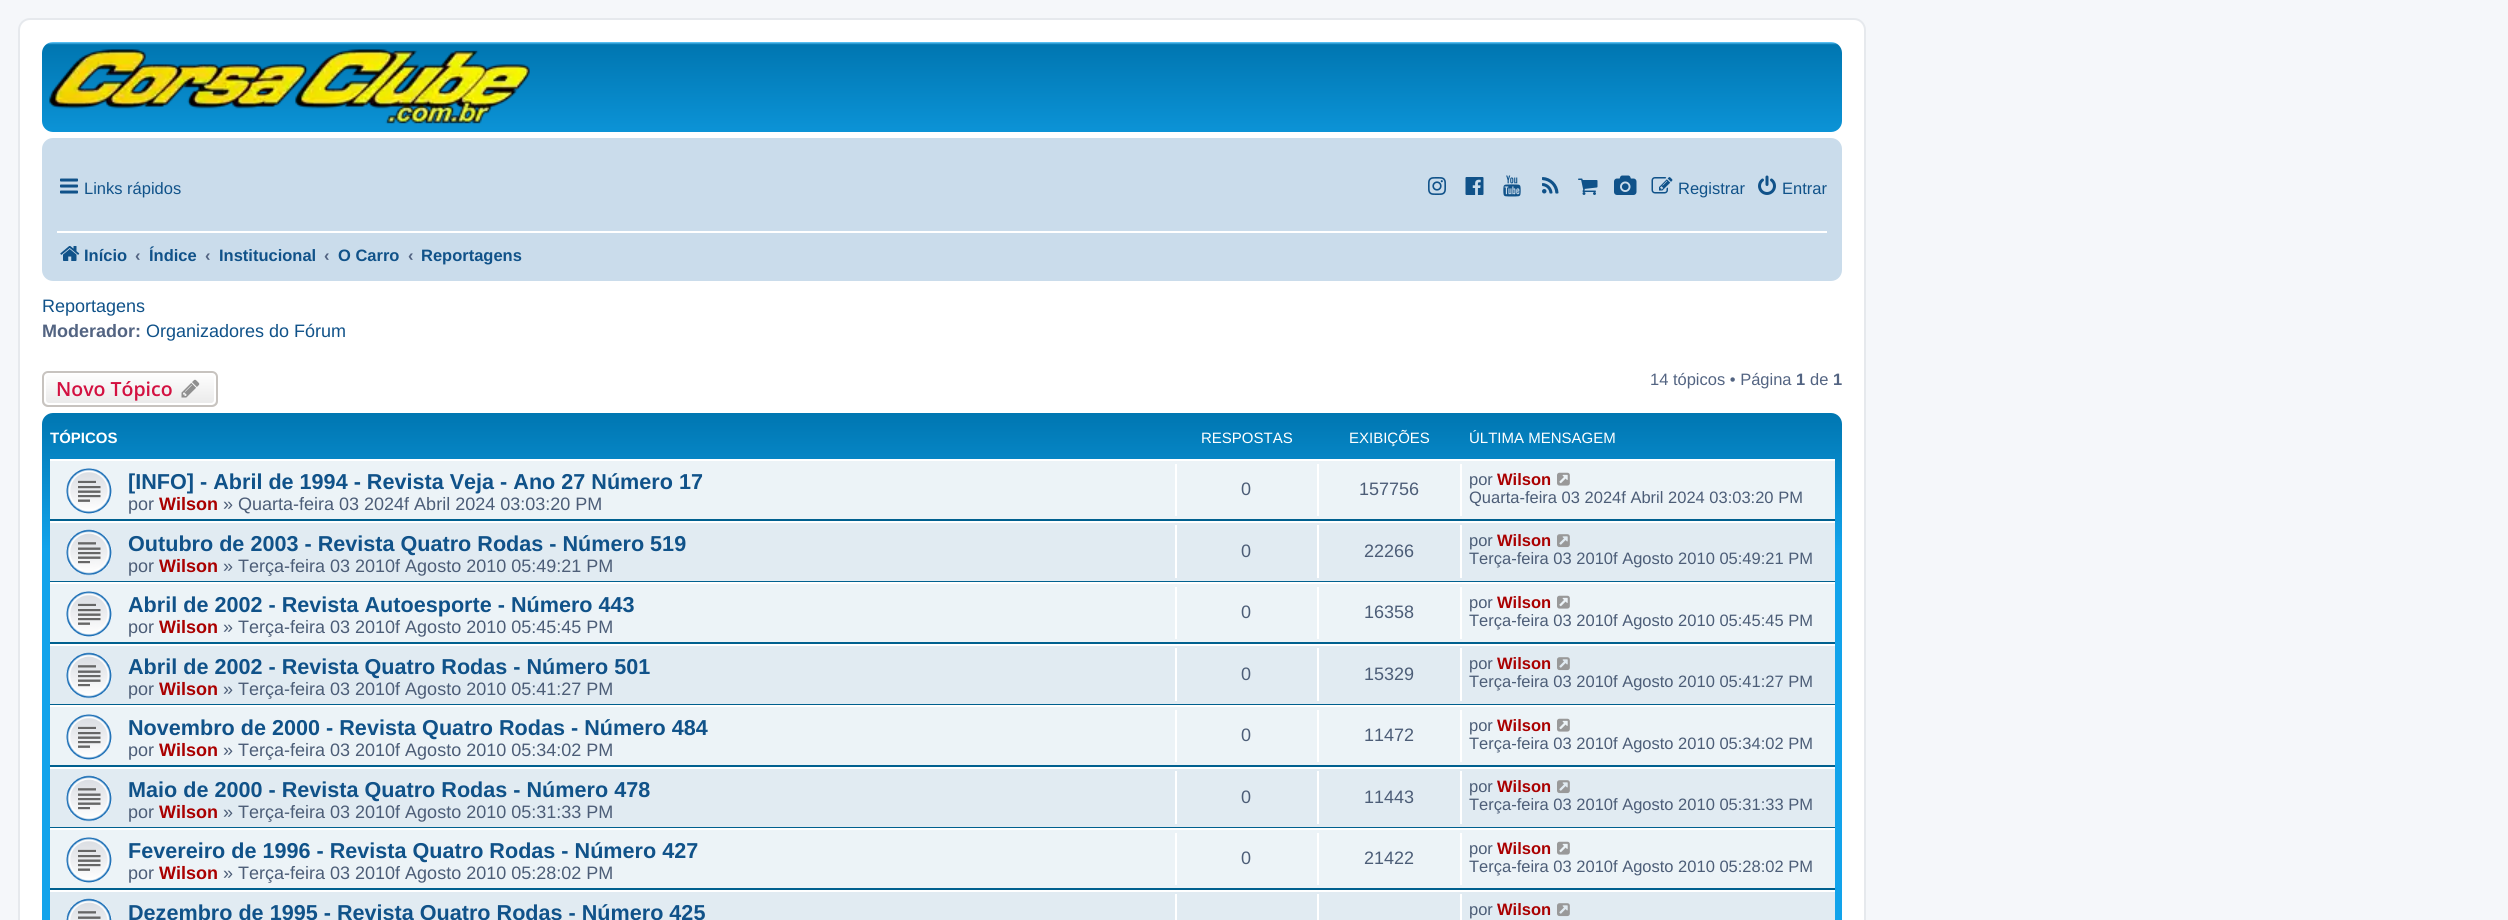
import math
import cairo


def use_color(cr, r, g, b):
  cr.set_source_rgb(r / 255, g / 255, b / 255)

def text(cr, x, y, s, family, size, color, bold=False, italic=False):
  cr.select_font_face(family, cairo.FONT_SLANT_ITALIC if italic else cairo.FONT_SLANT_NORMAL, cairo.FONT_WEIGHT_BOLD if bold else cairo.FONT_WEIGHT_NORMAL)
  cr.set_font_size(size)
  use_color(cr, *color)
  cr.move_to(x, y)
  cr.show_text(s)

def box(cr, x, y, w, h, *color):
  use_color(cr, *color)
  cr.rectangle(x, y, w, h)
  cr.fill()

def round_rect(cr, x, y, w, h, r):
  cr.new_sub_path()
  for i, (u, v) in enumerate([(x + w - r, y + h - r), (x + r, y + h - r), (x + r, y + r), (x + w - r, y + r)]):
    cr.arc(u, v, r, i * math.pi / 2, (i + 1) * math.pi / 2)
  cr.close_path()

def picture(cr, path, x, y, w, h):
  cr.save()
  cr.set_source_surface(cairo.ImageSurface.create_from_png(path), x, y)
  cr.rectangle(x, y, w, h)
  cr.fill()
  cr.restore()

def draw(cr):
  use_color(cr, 245, 247, 250)
  cr.paint()
  use_color(cr, 255, 255, 255)
  round_rect(cr, 19, 19, 1846, 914, 11)
  cr.fill_preserve()
  use_color(cr, 230, 233, 237)
  cr.stroke()
  gradient = cairo.LinearGradient(942, 42, 942, 180)
  gradient.add_color_stop_rgba(0, 0.416, 0.808, 1, 1)
  gradient.add_color_stop_rgba(0.02, 0, 0.463, 0.694, 1)
  gradient.add_color_stop_rgba(1, 0.071, 0.639, 0.922, 1)
  cr.set_source(gradient)
  round_rect(cr, 42, 42, 1800, 90, 11)
  cr.fill()
  picture(cr, "img_01.png", 49, 49, 481, 76)
  use_color(cr, 202, 220, 235)
  round_rect(cr, 42, 138, 1800, 143, 11)
  cr.fill()
  picture(cr, "img_02.png", 60, 178, 18, 16)
  picture(cr, "img_03.png", 1428, 177, 18, 18)
  picture(cr, "img_04.png", 1465, 177, 19, 18)
  picture(cr, "img_05.png", 1503, 175, 18, 22)
  picture(cr, "img_06.png", 1542, 177, 17, 17)
  picture(cr, "img_07.png", 1578, 178, 20, 17)
  picture(cr, "img_08.png", 1614, 175, 23, 20)
  picture(cr, "img_09.png", 1651, 177, 22, 17)
  picture(cr, "img_10.png", 1758, 175, 18, 20)
  box(cr, 57, 231, 1770, 2, 255, 255, 255)
  picture(cr, "img_11.png", 60, 246, 20, 15)
  cr.save()
  round_rect(cr, 42, 371, 176, 36, 6)
  cr.clip()
  gradient = cairo.LinearGradient(130, 372, 130, 405)
  gradient.add_color_stop_rgba(0, 1, 1, 1, 1)
  gradient.add_color_stop_rgba(1, 0.914, 0.914, 0.914, 1)
  cr.set_source(gradient)
  cr.rectangle(42, 372, 176, 33)
  cr.fill()
  cr.restore()
  round_rect(cr, 45, 373, 170, 31, 4)
  cr.stroke()
  round_rect(cr, 43, 372, 174, 34, 5)
  use_color(cr, 199, 195, 191)
  cr.stroke()
  picture(cr, "img_12.png", 181, 379, 19, 19)
  gradient = cairo.LinearGradient(942, 412, 942, 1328)
  gradient.add_color_stop_rgba(0, 0.416, 0.808, 1, 1)
  gradient.add_color_stop_rgba(0, 0, 0.463, 0.694, 1)
  gradient.add_color_stop_rgba(0.15, 0.071, 0.639, 0.922, 1)
  gradient.add_color_stop_rgba(1, 0.071, 0.639, 0.922, 1)
  cr.set_source(gradient)
  round_rect(cr, 42, 413, 1800, 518, 11)
  cr.fill()
  box(cr, 50, 461, 1785, 58, 236, 243, 247)
  box(cr, 50, 459, 1785, 2, 255, 255, 255)
  box(cr, 50, 519, 1785, 2, 0, 96, 143)
  picture(cr, "img_13.png", 66, 468, 46, 46)
  box(cr, 1175, 464, 2, 52, 255, 255, 255)
  box(cr, 1317, 464, 2, 52, 255, 255, 255)
  box(cr, 1460, 464, 2, 52, 255, 255, 255)
  picture(cr, "img_14.png", 1557, 472, 13, 14)
  box(cr, 50, 523, 1785, 58, 225, 235, 242)
  box(cr, 50, 521, 1785, 2, 255, 255, 255)
  box(cr, 50, 581, 1785, 1, 0, 96, 143)
  picture(cr, "img_15.png", 66, 529, 46, 47)
  box(cr, 1175, 525, 2, 53, 255, 255, 255)
  box(cr, 1317, 525, 2, 53, 255, 255, 255)
  box(cr, 1460, 525, 2, 53, 255, 255, 255)
  picture(cr, "img_16.png", 1557, 534, 13, 14)
  box(cr, 50, 584, 1785, 58, 236, 243, 247)
  box(cr, 50, 582, 1785, 2, 255, 255, 255)
  box(cr, 50, 642, 1785, 2, 0, 96, 143)
  picture(cr, "img_13.png", 66, 591, 46, 46)
  box(cr, 1175, 587, 2, 52, 255, 255, 255)
  box(cr, 1317, 587, 2, 52, 255, 255, 255)
  box(cr, 1460, 587, 2, 52, 255, 255, 255)
  picture(cr, "img_14.png", 1557, 595, 13, 14)
  box(cr, 50, 646, 1785, 58, 225, 235, 242)
  box(cr, 50, 644, 1785, 2, 255, 255, 255)
  box(cr, 50, 704, 1785, 1, 0, 96, 143)
  picture(cr, "img_15.png", 66, 652, 46, 47)
  box(cr, 1175, 648, 2, 53, 255, 255, 255)
  box(cr, 1317, 648, 2, 53, 255, 255, 255)
  box(cr, 1460, 648, 2, 53, 255, 255, 255)
  picture(cr, "img_16.png", 1557, 657, 13, 14)
  box(cr, 50, 707, 1785, 58, 236, 243, 247)
  box(cr, 50, 705, 1785, 2, 255, 255, 255)
  box(cr, 50, 765, 1785, 2, 0, 96, 143)
  picture(cr, "img_13.png", 66, 714, 46, 46)
  box(cr, 1175, 710, 2, 52, 255, 255, 255)
  box(cr, 1317, 710, 2, 52, 255, 255, 255)
  box(cr, 1460, 710, 2, 52, 255, 255, 255)
  picture(cr, "img_14.png", 1557, 718, 13, 14)
  box(cr, 50, 769, 1785, 58, 225, 235, 242)
  box(cr, 50, 767, 1785, 2, 255, 255, 255)
  box(cr, 50, 827, 1785, 1, 0, 96, 143)
  picture(cr, "img_15.png", 66, 775, 46, 47)
  box(cr, 1175, 771, 2, 53, 255, 255, 255)
  box(cr, 1317, 771, 2, 53, 255, 255, 255)
  box(cr, 1460, 771, 2, 53, 255, 255, 255)
  picture(cr, "img_16.png", 1557, 780, 13, 14)
  box(cr, 50, 830, 1785, 58, 236, 243, 247)
  box(cr, 50, 828, 1785, 2, 255, 255, 255)
  box(cr, 50, 888, 1785, 2, 0, 96, 143)
  picture(cr, "img_13.png", 66, 837, 46, 46)
  box(cr, 1175, 833, 2, 52, 255, 255, 255)
  box(cr, 1317, 833, 2, 52, 255, 255, 255)
  box(cr, 1460, 833, 2, 52, 255, 255, 255)
  picture(cr, "img_14.png", 1557, 841, 13, 14)
  box(cr, 50, 892, 1785, 28, 225, 235, 242)
  box(cr, 50, 890, 1785, 2, 255, 255, 255)
  picture(cr, "img_17.png", 66, 898, 46, 22)
  box(cr, 1175, 894, 2, 26, 255, 255, 255)
  box(cr, 1317, 894, 2, 26, 255, 255, 255)
  box(cr, 1460, 894, 2, 26, 255, 255, 255)
  picture(cr, "img_16.png", 1557, 903, 13, 14)
  text(cr, 84, 194, "Links rápidos", "Liberation Sans", 16.5, (16, 82, 137))
  text(cr, 1678, 194, "Registrar", "Liberation Sans", 16.5, (16, 82, 137))
  text(cr, 1782, 194, "Entrar", "Liberation Sans", 16.5, (16, 82, 137))
  text(cr, 84, 261, "Início", "Liberation Sans", 16.5, (16, 82, 137), bold=True)
  text(cr, 135, 261, "‹", "Liberation Sans", 16.5, (83, 100, 130), bold=True)
  text(cr, 149, 261, "Índice", "Liberation Sans", 16.5, (16, 82, 137), bold=True)
  text(cr, 205, 261, "‹", "Liberation Sans", 16.5, (83, 100, 130), bold=True)
  text(cr, 219, 261, "Institucional", "Liberation Sans", 16.5, (16, 82, 137), bold=True)
  text(cr, 324, 261, "‹", "Liberation Sans", 16.5, (83, 100, 130), bold=True)
  text(cr, 338, 261, "O Carro", "Liberation Sans", 16.5, (16, 82, 137), bold=True)
  text(cr, 408, 261, "‹", "Liberation Sans", 16.5, (83, 100, 130), bold=True)
  text(cr, 421, 261, "Reportagens", "Liberation Sans", 16.5, (16, 82, 137), bold=True)
  text(cr, 42, 312, "Reportagens", "Liberation Sans", 18, (16, 82, 137))
  text(cr, 42, 337, "Moderador:", "Liberation Sans", 18, (83, 100, 130), bold=True)
  text(cr, 146, 337, "Organizadores do Fórum", "Liberation Sans", 18, (16, 82, 137))
  text(cr, 56, 396, "Novo Tópico", "Open Sans SemiBold", 19.5, (211, 17, 65))
  text(cr, 1650, 385, "14 tópicos • Página", "Liberation Sans", 16.5, (83, 100, 130))
  text(cr, 1796, 385, "1", "Liberation Sans", 16.5, (83, 100, 130), bold=True)
  text(cr, 1810, 385, "de", "Liberation Sans", 16.5, (83, 100, 130))
  text(cr, 1833, 385, "1", "Liberation Sans", 16.5, (83, 100, 130), bold=True)
  cr.save()
  cr.rectangle(50, 420, 1785, 39)
  cr.clip()
  text(cr, 50, 443, "TÓPICOS", "Liberation Sans", 15, (255, 255, 255), bold=True)
  cr.restore()
  text(cr, 1201, 443, "RESPOSTAS", "Liberation Sans", 15, (255, 255, 255))
  text(cr, 1349, 443, "EXIBIÇÕES", "Liberation Sans", 15, (255, 255, 255))
  text(cr, 1469, 443, "ÚLTIMA MENSAGEM", "Liberation Sans", 15, (255, 255, 255))
  text(cr, 128, 489, "[INFO] - Abril de 1994 - Revista Veja - Ano 27 Número 17", "Liberation Sans", 21.6, (16, 82, 137), bold=True)
  text(cr, 128, 510, "por", "Liberation Sans", 18, (76, 93, 119))
  text(cr, 159, 510, "Wilson", "Liberation Sans", 18, (170, 0, 0), bold=True)
  text(cr, 223, 510, "» Quarta-feira 03 2024f Abril 2024 03:03:20 PM", "Liberation Sans", 18, (76, 93, 119))
  text(cr, 1241, 495, "0", "Liberation Sans", 18, (76, 93, 119))
  text(cr, 1359, 495, "157756", "Liberation Sans", 18, (76, 93, 119))
  text(cr, 1469, 485, "por", "Liberation Sans", 16.5, (76, 93, 119))
  text(cr, 1497, 485, "Wilson", "Liberation Sans", 16.5, (170, 0, 0), bold=True)
  text(cr, 1469, 503, "Quarta-feira 03 2024f Abril 2024 03:03:20 PM", "Liberation Sans", 16.5, (76, 93, 119))
  text(cr, 128, 551, "Outubro de 2003 - Revista Quatro Rodas - Número 519", "Liberation Sans", 21.6, (16, 82, 137), bold=True)
  text(cr, 128, 572, "por", "Liberation Sans", 18, (76, 93, 119))
  text(cr, 159, 572, "Wilson", "Liberation Sans", 18, (170, 0, 0), bold=True)
  text(cr, 223, 572, "» Terça-feira 03 2010f Agosto 2010 05:49:21 PM", "Liberation Sans", 18, (76, 93, 119))
  text(cr, 1241, 557, "0", "Liberation Sans", 18, (76, 93, 119))
  text(cr, 1364, 557, "22266", "Liberation Sans", 18, (76, 93, 119))
  text(cr, 1469, 546, "por", "Liberation Sans", 16.5, (76, 93, 119))
  text(cr, 1497, 546, "Wilson", "Liberation Sans", 16.5, (170, 0, 0), bold=True)
  text(cr, 1469, 564, "Terça-feira 03 2010f Agosto 2010 05:49:21 PM", "Liberation Sans", 16.5, (76, 93, 119))
  text(cr, 128, 612, "Abril de 2002 - Revista Autoesporte - Número 443", "Liberation Sans", 21.6, (16, 82, 137), bold=True)
  text(cr, 128, 633, "por", "Liberation Sans", 18, (76, 93, 119))
  text(cr, 159, 633, "Wilson", "Liberation Sans", 18, (170, 0, 0), bold=True)
  text(cr, 223, 633, "» Terça-feira 03 2010f Agosto 2010 05:45:45 PM", "Liberation Sans", 18, (76, 93, 119))
  text(cr, 1241, 618, "0", "Liberation Sans", 18, (76, 93, 119))
  text(cr, 1364, 618, "16358", "Liberation Sans", 18, (76, 93, 119))
  text(cr, 1469, 608, "por", "Liberation Sans", 16.5, (76, 93, 119))
  text(cr, 1497, 608, "Wilson", "Liberation Sans", 16.5, (170, 0, 0), bold=True)
  text(cr, 1469, 626, "Terça-feira 03 2010f Agosto 2010 05:45:45 PM", "Liberation Sans", 16.5, (76, 93, 119))
  text(cr, 128, 674, "Abril de 2002 - Revista Quatro Rodas - Número 501", "Liberation Sans", 21.6, (16, 82, 137), bold=True)
  text(cr, 128, 695, "por", "Liberation Sans", 18, (76, 93, 119))
  text(cr, 159, 695, "Wilson", "Liberation Sans", 18, (170, 0, 0), bold=True)
  text(cr, 223, 695, "» Terça-feira 03 2010f Agosto 2010 05:41:27 PM", "Liberation Sans", 18, (76, 93, 119))
  text(cr, 1241, 680, "0", "Liberation Sans", 18, (76, 93, 119))
  text(cr, 1364, 680, "15329", "Liberation Sans", 18, (76, 93, 119))
  text(cr, 1469, 669, "por", "Liberation Sans", 16.5, (76, 93, 119))
  text(cr, 1497, 669, "Wilson", "Liberation Sans", 16.5, (170, 0, 0), bold=True)
  text(cr, 1469, 687, "Terça-feira 03 2010f Agosto 2010 05:41:27 PM", "Liberation Sans", 16.5, (76, 93, 119))
  text(cr, 128, 735, "Novembro de 2000 - Revista Quatro Rodas - Número 484", "Liberation Sans", 21.6, (16, 82, 137), bold=True)
  text(cr, 128, 756, "por", "Liberation Sans", 18, (76, 93, 119))
  text(cr, 159, 756, "Wilson", "Liberation Sans", 18, (170, 0, 0), bold=True)
  text(cr, 223, 756, "» Terça-feira 03 2010f Agosto 2010 05:34:02 PM", "Liberation Sans", 18, (76, 93, 119))
  text(cr, 1241, 741, "0", "Liberation Sans", 18, (76, 93, 119))
  text(cr, 1364, 741, "11472", "Liberation Sans", 18, (76, 93, 119))
  text(cr, 1469, 731, "por", "Liberation Sans", 16.5, (76, 93, 119))
  text(cr, 1497, 731, "Wilson", "Liberation Sans", 16.5, (170, 0, 0), bold=True)
  text(cr, 1469, 749, "Terça-feira 03 2010f Agosto 2010 05:34:02 PM", "Liberation Sans", 16.5, (76, 93, 119))
  text(cr, 128, 797, "Maio de 2000 - Revista Quatro Rodas - Número 478", "Liberation Sans", 21.6, (16, 82, 137), bold=True)
  text(cr, 128, 818, "por", "Liberation Sans", 18, (76, 93, 119))
  text(cr, 159, 818, "Wilson", "Liberation Sans", 18, (170, 0, 0), bold=True)
  text(cr, 223, 818, "» Terça-feira 03 2010f Agosto 2010 05:31:33 PM", "Liberation Sans", 18, (76, 93, 119))
  text(cr, 1241, 803, "0", "Liberation Sans", 18, (76, 93, 119))
  text(cr, 1364, 803, "11443", "Liberation Sans", 18, (76, 93, 119))
  text(cr, 1469, 792, "por", "Liberation Sans", 16.5, (76, 93, 119))
  text(cr, 1497, 792, "Wilson", "Liberation Sans", 16.5, (170, 0, 0), bold=True)
  text(cr, 1469, 810, "Terça-feira 03 2010f Agosto 2010 05:31:33 PM", "Liberation Sans", 16.5, (76, 93, 119))
  text(cr, 128, 858, "Fevereiro de 1996 - Revista Quatro Rodas - Número 427", "Liberation Sans", 21.6, (16, 82, 137), bold=True)
  text(cr, 128, 879, "por", "Liberation Sans", 18, (76, 93, 119))
  text(cr, 159, 879, "Wilson", "Liberation Sans", 18, (170, 0, 0), bold=True)
  text(cr, 223, 879, "» Terça-feira 03 2010f Agosto 2010 05:28:02 PM", "Liberation Sans", 18, (76, 93, 119))
  text(cr, 1241, 864, "0", "Liberation Sans", 18, (76, 93, 119))
  text(cr, 1364, 864, "21422", "Liberation Sans", 18, (76, 93, 119))
  text(cr, 1469, 854, "por", "Liberation Sans", 16.5, (76, 93, 119))
  text(cr, 1497, 854, "Wilson", "Liberation Sans", 16.5, (170, 0, 0), bold=True)
  text(cr, 1469, 872, "Terça-feira 03 2010f Agosto 2010 05:28:02 PM", "Liberation Sans", 16.5, (76, 93, 119))
  text(cr, 128, 920, "Dezembro de 1995 - Revista Quatro Rodas - Número 425", "Liberation Sans", 21.6, (16, 82, 137), bold=True)
  text(cr, 1469, 915, "por", "Liberation Sans", 16.5, (76, 93, 119))
  text(cr, 1497, 915, "Wilson", "Liberation Sans", 16.5, (170, 0, 0), bold=True)


surface = cairo.ImageSurface(cairo.FORMAT_RGB24, 2508, 920)
cr = cairo.Context(surface)
options = cairo.FontOptions()
options.set_hint_metrics(cairo.HINT_METRICS_OFF)
options.set_hint_style(cairo.HINT_STYLE_NONE)
cr.set_font_options(options)
cr.set_miter_limit(4)
draw(cr)
surface.write_to_png("out.png")
